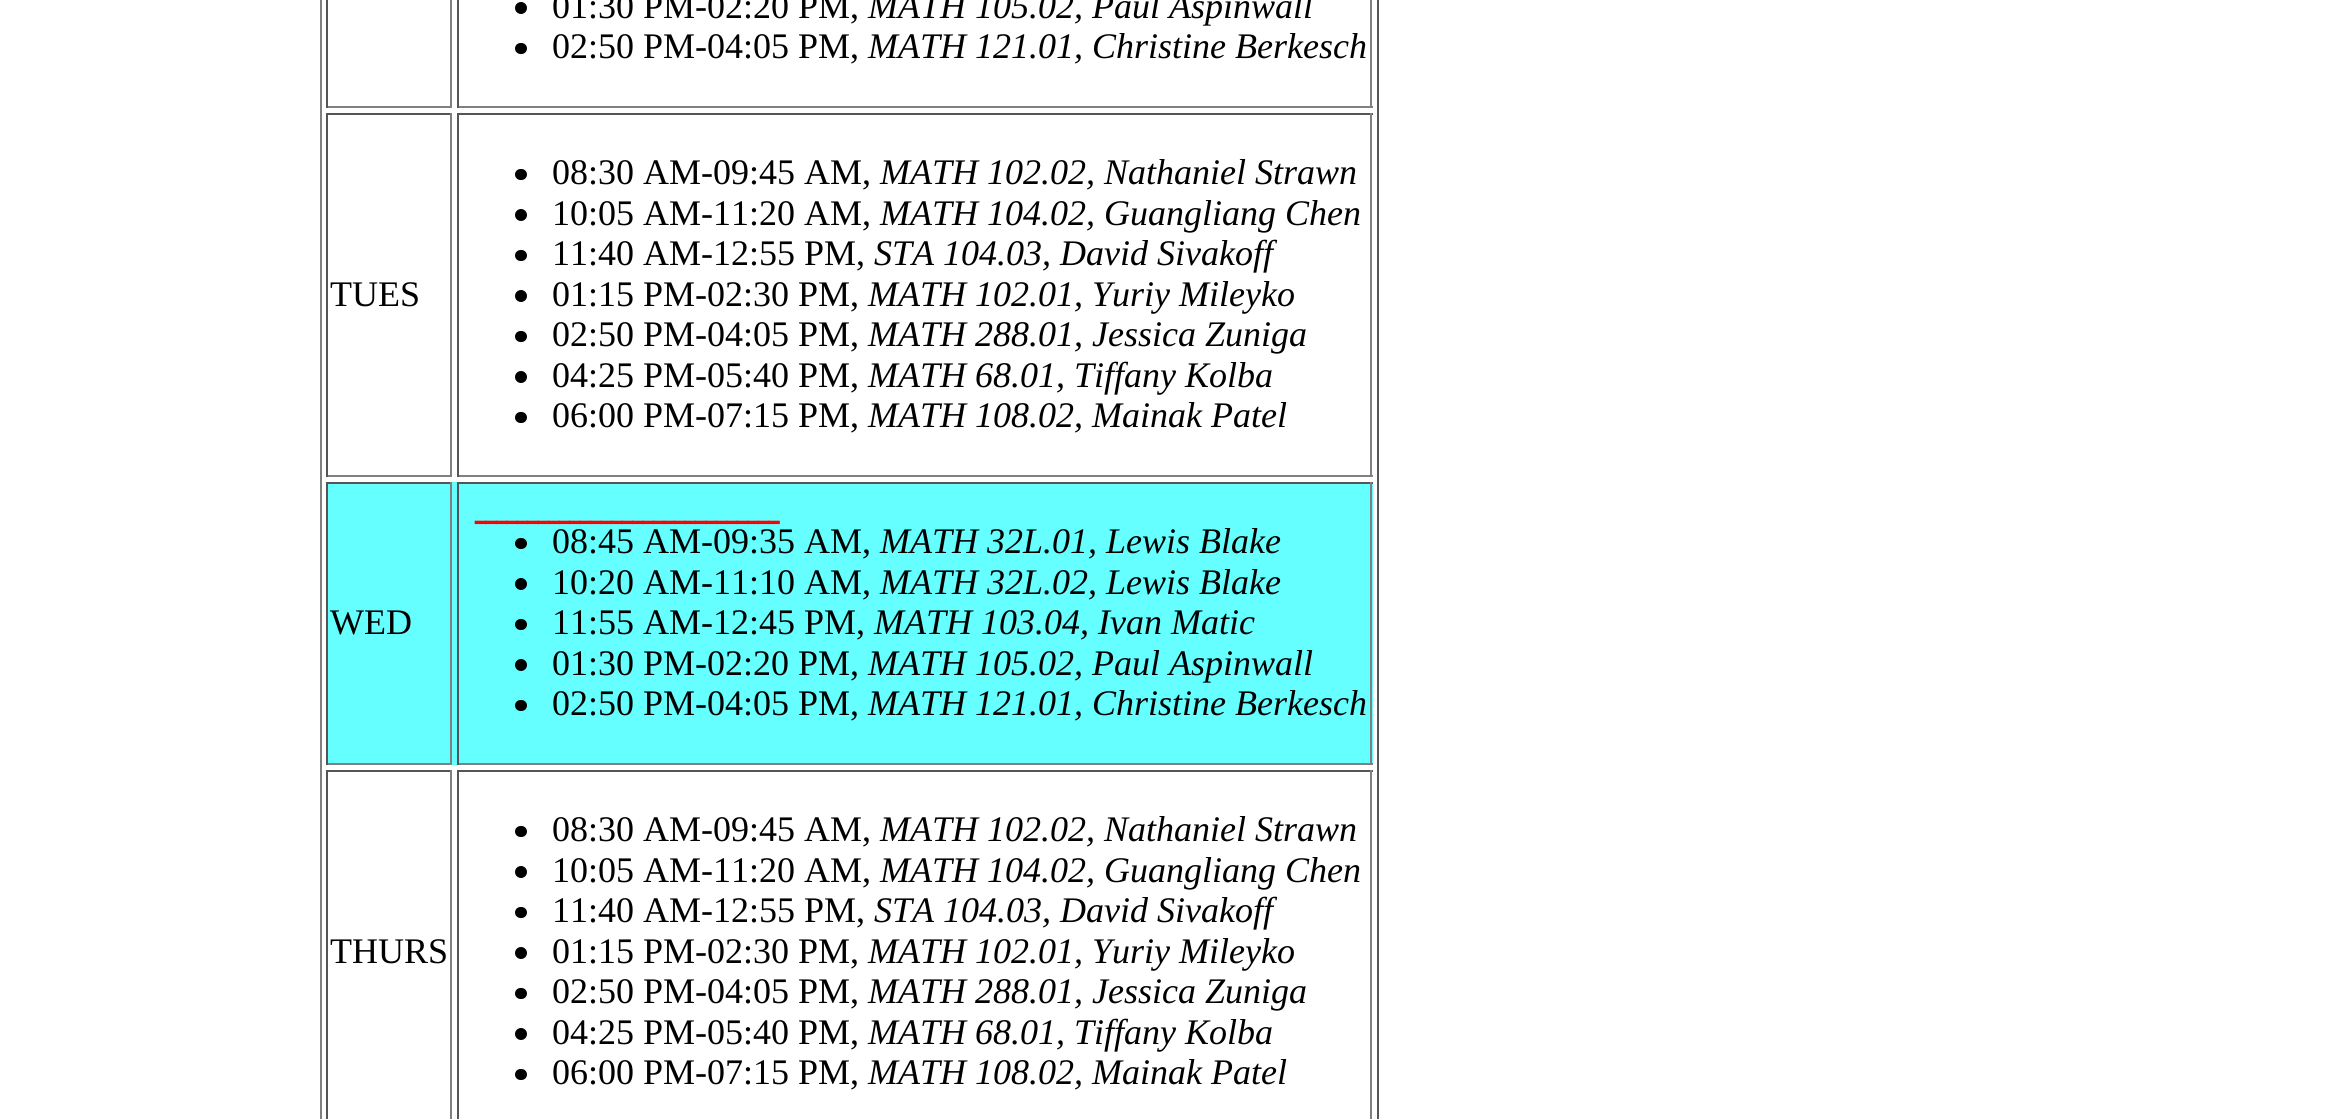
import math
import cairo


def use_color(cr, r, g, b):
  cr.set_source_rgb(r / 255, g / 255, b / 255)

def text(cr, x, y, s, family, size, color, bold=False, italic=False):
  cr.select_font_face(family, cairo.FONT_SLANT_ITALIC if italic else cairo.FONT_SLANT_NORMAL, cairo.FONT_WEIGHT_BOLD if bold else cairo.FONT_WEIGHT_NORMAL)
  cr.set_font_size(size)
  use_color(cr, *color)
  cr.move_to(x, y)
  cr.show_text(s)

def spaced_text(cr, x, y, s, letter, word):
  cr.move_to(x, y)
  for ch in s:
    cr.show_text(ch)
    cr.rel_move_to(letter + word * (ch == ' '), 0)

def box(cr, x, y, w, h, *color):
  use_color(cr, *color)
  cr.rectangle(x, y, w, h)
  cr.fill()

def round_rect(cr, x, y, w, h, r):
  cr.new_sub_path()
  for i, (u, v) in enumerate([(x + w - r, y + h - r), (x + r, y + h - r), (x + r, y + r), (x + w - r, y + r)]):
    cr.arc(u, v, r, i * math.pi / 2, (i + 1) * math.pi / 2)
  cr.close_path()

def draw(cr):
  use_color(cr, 255, 255, 255)
  cr.paint()
  box(cr, 1377, 0, 2, 1119, 85, 85, 85)
  box(cr, 320, 0, 2, 1119, 128, 128, 128)
  box(cr, 450, 0, 2, 108, 128, 128, 128)
  box(cr, 326, 106, 126, 2, 128, 128, 128)
  box(cr, 326, 0, 2, 108, 85, 85, 85)
  box(cr, 1370, 0, 2, 108, 128, 128, 128)
  box(cr, 457, 106, 916, 2, 128, 128, 128)
  box(cr, 457, 0, 2, 108, 85, 85, 85)
  use_color(cr, 0, 0, 0)
  cr.arc(521, 8, 6, 0, 2 * math.pi)
  cr.fill()
  round_rect(cr, 515, 43, 12, 11, 5.5)
  cr.fill()
  box(cr, 326, 113, 126, 2, 85, 85, 85)
  box(cr, 450, 113, 2, 364, 128, 128, 128)
  box(cr, 326, 475, 126, 2, 128, 128, 128)
  box(cr, 326, 113, 2, 364, 85, 85, 85)
  box(cr, 457, 113, 916, 2, 85, 85, 85)
  box(cr, 1370, 113, 2, 364, 128, 128, 128)
  box(cr, 457, 475, 916, 2, 128, 128, 128)
  box(cr, 457, 113, 2, 364, 85, 85, 85)
  use_color(cr, 0, 0, 0)
  round_rect(cr, 515, 169, 12, 11, 5.5)
  cr.fill()
  cr.arc(521, 215, 6, 0, 2 * math.pi)
  cr.fill()
  round_rect(cr, 515, 250, 12, 11, 5.5)
  cr.fill()
  cr.arc(521, 296, 6, 0, 2 * math.pi)
  cr.fill()
  round_rect(cr, 515, 331, 12, 11, 5.5)
  cr.fill()
  cr.arc(521, 377, 6, 0, 2 * math.pi)
  cr.fill()
  round_rect(cr, 515, 412, 12, 11, 5.5)
  cr.fill()
  box(cr, 328, 482, 1045, 283, 102, 255, 255)
  box(cr, 326, 482, 126, 2, 85, 85, 85)
  box(cr, 450, 482, 2, 283, 128, 128, 128)
  box(cr, 326, 763, 126, 2, 128, 128, 128)
  box(cr, 326, 482, 2, 283, 85, 85, 85)
  box(cr, 457, 482, 916, 2, 85, 85, 85)
  box(cr, 1370, 482, 2, 283, 128, 128, 128)
  box(cr, 457, 763, 916, 2, 128, 128, 128)
  box(cr, 457, 482, 2, 283, 85, 85, 85)
  use_color(cr, 0, 0, 0)
  round_rect(cr, 515, 538, 12, 11, 5.5)
  cr.fill()
  cr.arc(521, 584, 6, 0, 2 * math.pi)
  cr.fill()
  round_rect(cr, 515, 619, 12, 11, 5.5)
  cr.fill()
  cr.arc(521, 665, 6, 0, 2 * math.pi)
  cr.fill()
  round_rect(cr, 515, 700, 12, 11, 5.5)
  cr.fill()
  box(cr, 326, 770, 126, 2, 85, 85, 85)
  box(cr, 450, 770, 2, 349, 128, 128, 128)
  box(cr, 326, 770, 2, 349, 85, 85, 85)
  box(cr, 457, 770, 916, 2, 85, 85, 85)
  box(cr, 1370, 770, 2, 349, 128, 128, 128)
  box(cr, 457, 770, 2, 349, 85, 85, 85)
  use_color(cr, 0, 0, 0)
  round_rect(cr, 515, 826, 12, 11, 5.5)
  cr.fill()
  cr.arc(521, 872, 6, 0, 2 * math.pi)
  cr.fill()
  round_rect(cr, 515, 907, 12, 11, 5.5)
  cr.fill()
  cr.arc(521, 953, 6, 0, 2 * math.pi)
  cr.fill()
  round_rect(cr, 515, 988, 12, 11, 5.5)
  cr.fill()
  cr.arc(521, 1034, 6, 0, 2 * math.pi)
  cr.fill()
  round_rect(cr, 515, 1069, 12, 11, 5.5)
  cr.fill()
  text(cr, 552, 18, "01:30 PM-02:20 PM,", "Liberation Serif", 36, (0, 0, 0))
  text(cr, 868, 18, "MATH 105.02, Paul Aspinwall", "Liberation Serif", 36, (0, 0, 0), italic=True)
  text(cr, 552, 58, "02:50 PM-04:05 PM,", "Liberation Serif", 36, (0, 0, 0))
  text(cr, 868, 58, "MATH 121.01, Christine Berkesch", "Liberation Serif", 36, (0, 0, 0), italic=True)
  text(cr, 330, 306, "TUES", "Liberation Serif", 36, (0, 0, 0))
  text(cr, 552, 184, "08:30 AM-09:45 AM,", "Liberation Serif", 36, (0, 0, 0))
  text(cr, 880, 184, "MATH 102.02, Nathaniel Strawn", "Liberation Serif", 36, (0, 0, 0), italic=True)
  text(cr, 552, 225, "10:05 AM-11:20 AM,", "Liberation Serif", 36, (0, 0, 0))
  text(cr, 880, 225, "MATH 104.02, Guangliang Chen", "Liberation Serif", 36, (0, 0, 0), italic=True)
  text(cr, 552, 265, "11:40 AM-12:55 PM,", "Liberation Serif", 36, (0, 0, 0))
  text(cr, 874, 265, "STA 104.03, David Sivakoff", "Liberation Serif", 36, (0, 0, 0), italic=True)
  text(cr, 552, 306, "01:15 PM-02:30 PM,", "Liberation Serif", 36, (0, 0, 0))
  text(cr, 868, 306, "MATH 102.01, Yuriy Mileyko", "Liberation Serif", 36, (0, 0, 0), italic=True)
  text(cr, 552, 346, "02:50 PM-04:05 PM,", "Liberation Serif", 36, (0, 0, 0))
  text(cr, 868, 346, "MATH 288.01, Jessica Zuniga", "Liberation Serif", 36, (0, 0, 0), italic=True)
  text(cr, 552, 387, "04:25 PM-05:40 PM,", "Liberation Serif", 36, (0, 0, 0))
  text(cr, 868, 387, "MATH 68.01, Tiffany Kolba", "Liberation Serif", 36, (0, 0, 0), italic=True)
  text(cr, 552, 427, "06:00 PM-07:15 PM,", "Liberation Serif", 36, (0, 0, 0))
  text(cr, 868, 427, "MATH 108.02, Mainak Patel", "Liberation Serif", 36, (0, 0, 0), italic=True)
  text(cr, 330, 634, "WED", "Liberation Serif", 36, (0, 0, 0))
  text(cr, 552, 553, "08:45 AM-09:35 AM,", "Liberation Serif", 36, (0, 0, 0))
  text(cr, 880, 553, "MATH 32L.01, Lewis Blake", "Liberation Serif", 36, (0, 0, 0), italic=True)
  text(cr, 552, 594, "10:20 AM-11:10 AM,", "Liberation Serif", 36, (0, 0, 0))
  text(cr, 880, 594, "MATH 32L.02, Lewis Blake", "Liberation Serif", 36, (0, 0, 0), italic=True)
  text(cr, 552, 634, "11:55 AM-12:45 PM,", "Liberation Serif", 36, (0, 0, 0))
  text(cr, 874, 634, "MATH 103.04, Ivan Matic", "Liberation Serif", 36, (0, 0, 0), italic=True)
  text(cr, 552, 675, "01:30 PM-02:20 PM,", "Liberation Serif", 36, (0, 0, 0))
  text(cr, 868, 675, "MATH 105.02, Paul Aspinwall", "Liberation Serif", 36, (0, 0, 0), italic=True)
  text(cr, 552, 715, "02:50 PM-04:05 PM,", "Liberation Serif", 36, (0, 0, 0))
  text(cr, 868, 715, "MATH 121.01, Christine Berkesch", "Liberation Serif", 36, (0, 0, 0), italic=True)
  text(cr, 330, 963, "THURS", "Liberation Serif", 36, (0, 0, 0))
  text(cr, 552, 841, "08:30 AM-09:45 AM,", "Liberation Serif", 36, (0, 0, 0))
  text(cr, 880, 841, "MATH 102.02, Nathaniel Strawn", "Liberation Serif", 36, (0, 0, 0), italic=True)
  text(cr, 552, 882, "10:05 AM-11:20 AM,", "Liberation Serif", 36, (0, 0, 0))
  text(cr, 880, 882, "MATH 104.02, Guangliang Chen", "Liberation Serif", 36, (0, 0, 0), italic=True)
  text(cr, 552, 922, "11:40 AM-12:55 PM,", "Liberation Serif", 36, (0, 0, 0))
  text(cr, 874, 922, "STA 104.03, David Sivakoff", "Liberation Serif", 36, (0, 0, 0), italic=True)
  text(cr, 552, 963, "01:15 PM-02:30 PM,", "Liberation Serif", 36, (0, 0, 0))
  text(cr, 868, 963, "MATH 102.01, Yuriy Mileyko", "Liberation Serif", 36, (0, 0, 0), italic=True)
  text(cr, 552, 1003, "02:50 PM-04:05 PM,", "Liberation Serif", 36, (0, 0, 0))
  text(cr, 868, 1003, "MATH 288.01, Jessica Zuniga", "Liberation Serif", 36, (0, 0, 0), italic=True)
  text(cr, 552, 1044, "04:25 PM-05:40 PM,", "Liberation Serif", 36, (0, 0, 0))
  text(cr, 868, 1044, "MATH 68.01, Tiffany Kolba", "Liberation Serif", 36, (0, 0, 0), italic=True)
  text(cr, 552, 1084, "06:00 PM-07:15 PM,", "Liberation Serif", 36, (0, 0, 0))
  text(cr, 868, 1084, "MATH 108.02, Mainak Patel", "Liberation Serif", 36, (0, 0, 0), italic=True)
  cr.select_font_face("Liberation Serif")
  cr.set_font_size(45)
  use_color(cr, 255, 0, 0)
  spaced_text(cr, 473, 533, "-----------------------------", -4.5, 0)


surface = cairo.ImageSurface(cairo.FORMAT_RGB24, 2337, 1119)
cr = cairo.Context(surface)
options = cairo.FontOptions()
options.set_hint_metrics(cairo.HINT_METRICS_OFF)
options.set_hint_style(cairo.HINT_STYLE_NONE)
cr.set_font_options(options)
cr.set_miter_limit(4)
draw(cr)
surface.write_to_png("out.png")
